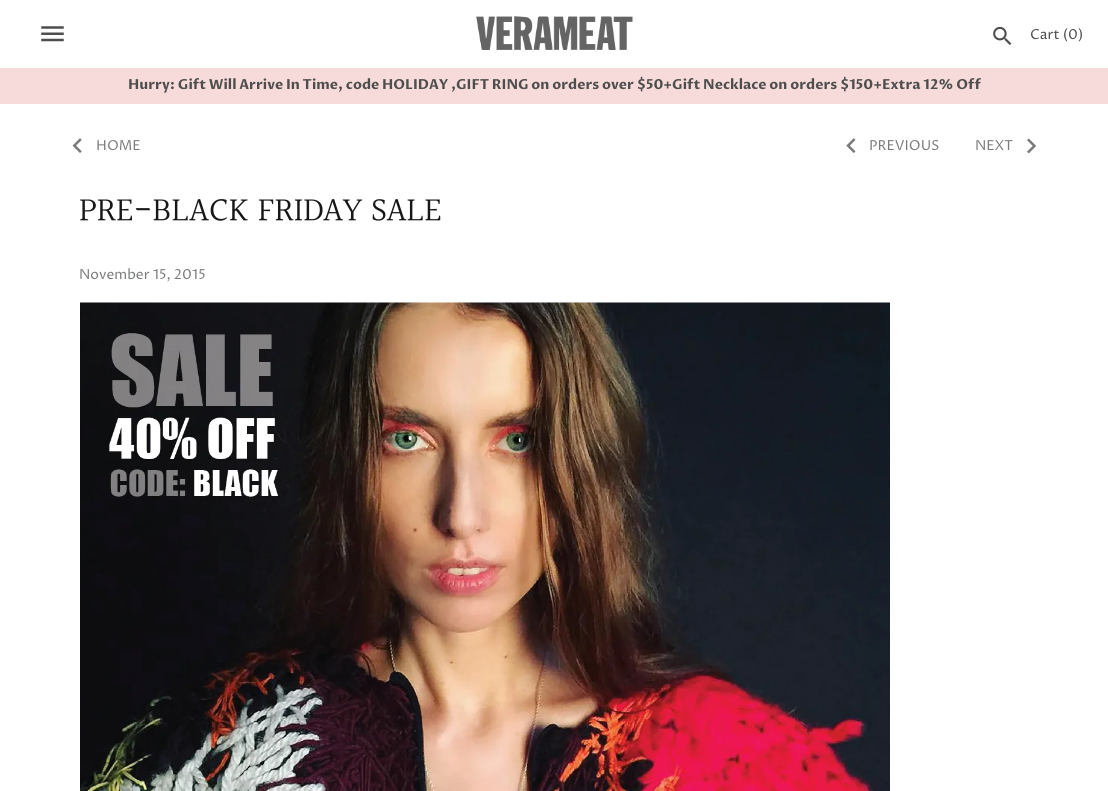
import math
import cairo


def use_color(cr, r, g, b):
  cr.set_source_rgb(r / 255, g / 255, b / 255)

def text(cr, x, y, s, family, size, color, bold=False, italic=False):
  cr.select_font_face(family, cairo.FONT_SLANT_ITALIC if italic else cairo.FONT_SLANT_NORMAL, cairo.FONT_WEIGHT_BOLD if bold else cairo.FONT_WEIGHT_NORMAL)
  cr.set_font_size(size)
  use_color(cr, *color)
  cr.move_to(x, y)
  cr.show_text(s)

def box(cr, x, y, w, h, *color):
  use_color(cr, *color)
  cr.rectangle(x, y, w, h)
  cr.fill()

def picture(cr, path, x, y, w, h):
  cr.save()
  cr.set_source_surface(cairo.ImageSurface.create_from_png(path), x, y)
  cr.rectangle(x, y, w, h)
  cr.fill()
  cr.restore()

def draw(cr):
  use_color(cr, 255, 255, 255)
  cr.paint()
  picture(cr, "img_01.png", 41, 26, 23, 16)
  picture(cr, "img_02.png", 476, 16, 157, 34)
  picture(cr, "img_03.png", 993, 26, 19, 19)
  box(cr, 0, 68, 1108, 36, 247, 219, 218)
  picture(cr, "img_04.png", 72, 138, 10, 15)
  picture(cr, "img_05.png", 846, 138, 10, 15)
  picture(cr, "img_06.png", 1027, 138, 10, 16)
  picture(cr, "img_07.png", 80, 302, 810, 489)
  text(cr, 1030, 39, "Cart (0)", "Proza Libre", 13.8, (78, 78, 78))
  text(cr, 128, 89, "Hurry: Gift Will Arrive In Time, code HOLIDAY ,GIFT RING on orders over $50+Gift Necklace on orders $150+Extra 12% Off", "Proza Libre", 13.8, (78, 78, 78), bold=True)
  text(cr, 96, 150, "HOME", "Proza Libre", 13.8, (120, 122, 124))
  text(cr, 869, 150, "PREVIOUS", "Proza Libre", 13.8, (120, 122, 124))
  text(cr, 975, 150, "NEXT", "Proza Libre", 13.8, (120, 122, 124))
  text(cr, 79, 222, "PRE-BLACK FRIDAY SALE", "Halant", 34.1, (23, 23, 23))
  text(cr, 79, 279, "November 15, 2015", "Proza Libre", 13.8, (120, 122, 124))


surface = cairo.ImageSurface(cairo.FORMAT_RGB24, 1108, 791)
cr = cairo.Context(surface)
options = cairo.FontOptions()
options.set_hint_metrics(cairo.HINT_METRICS_OFF)
options.set_hint_style(cairo.HINT_STYLE_NONE)
cr.set_font_options(options)
cr.set_miter_limit(4)
draw(cr)
surface.write_to_png("out.png")
